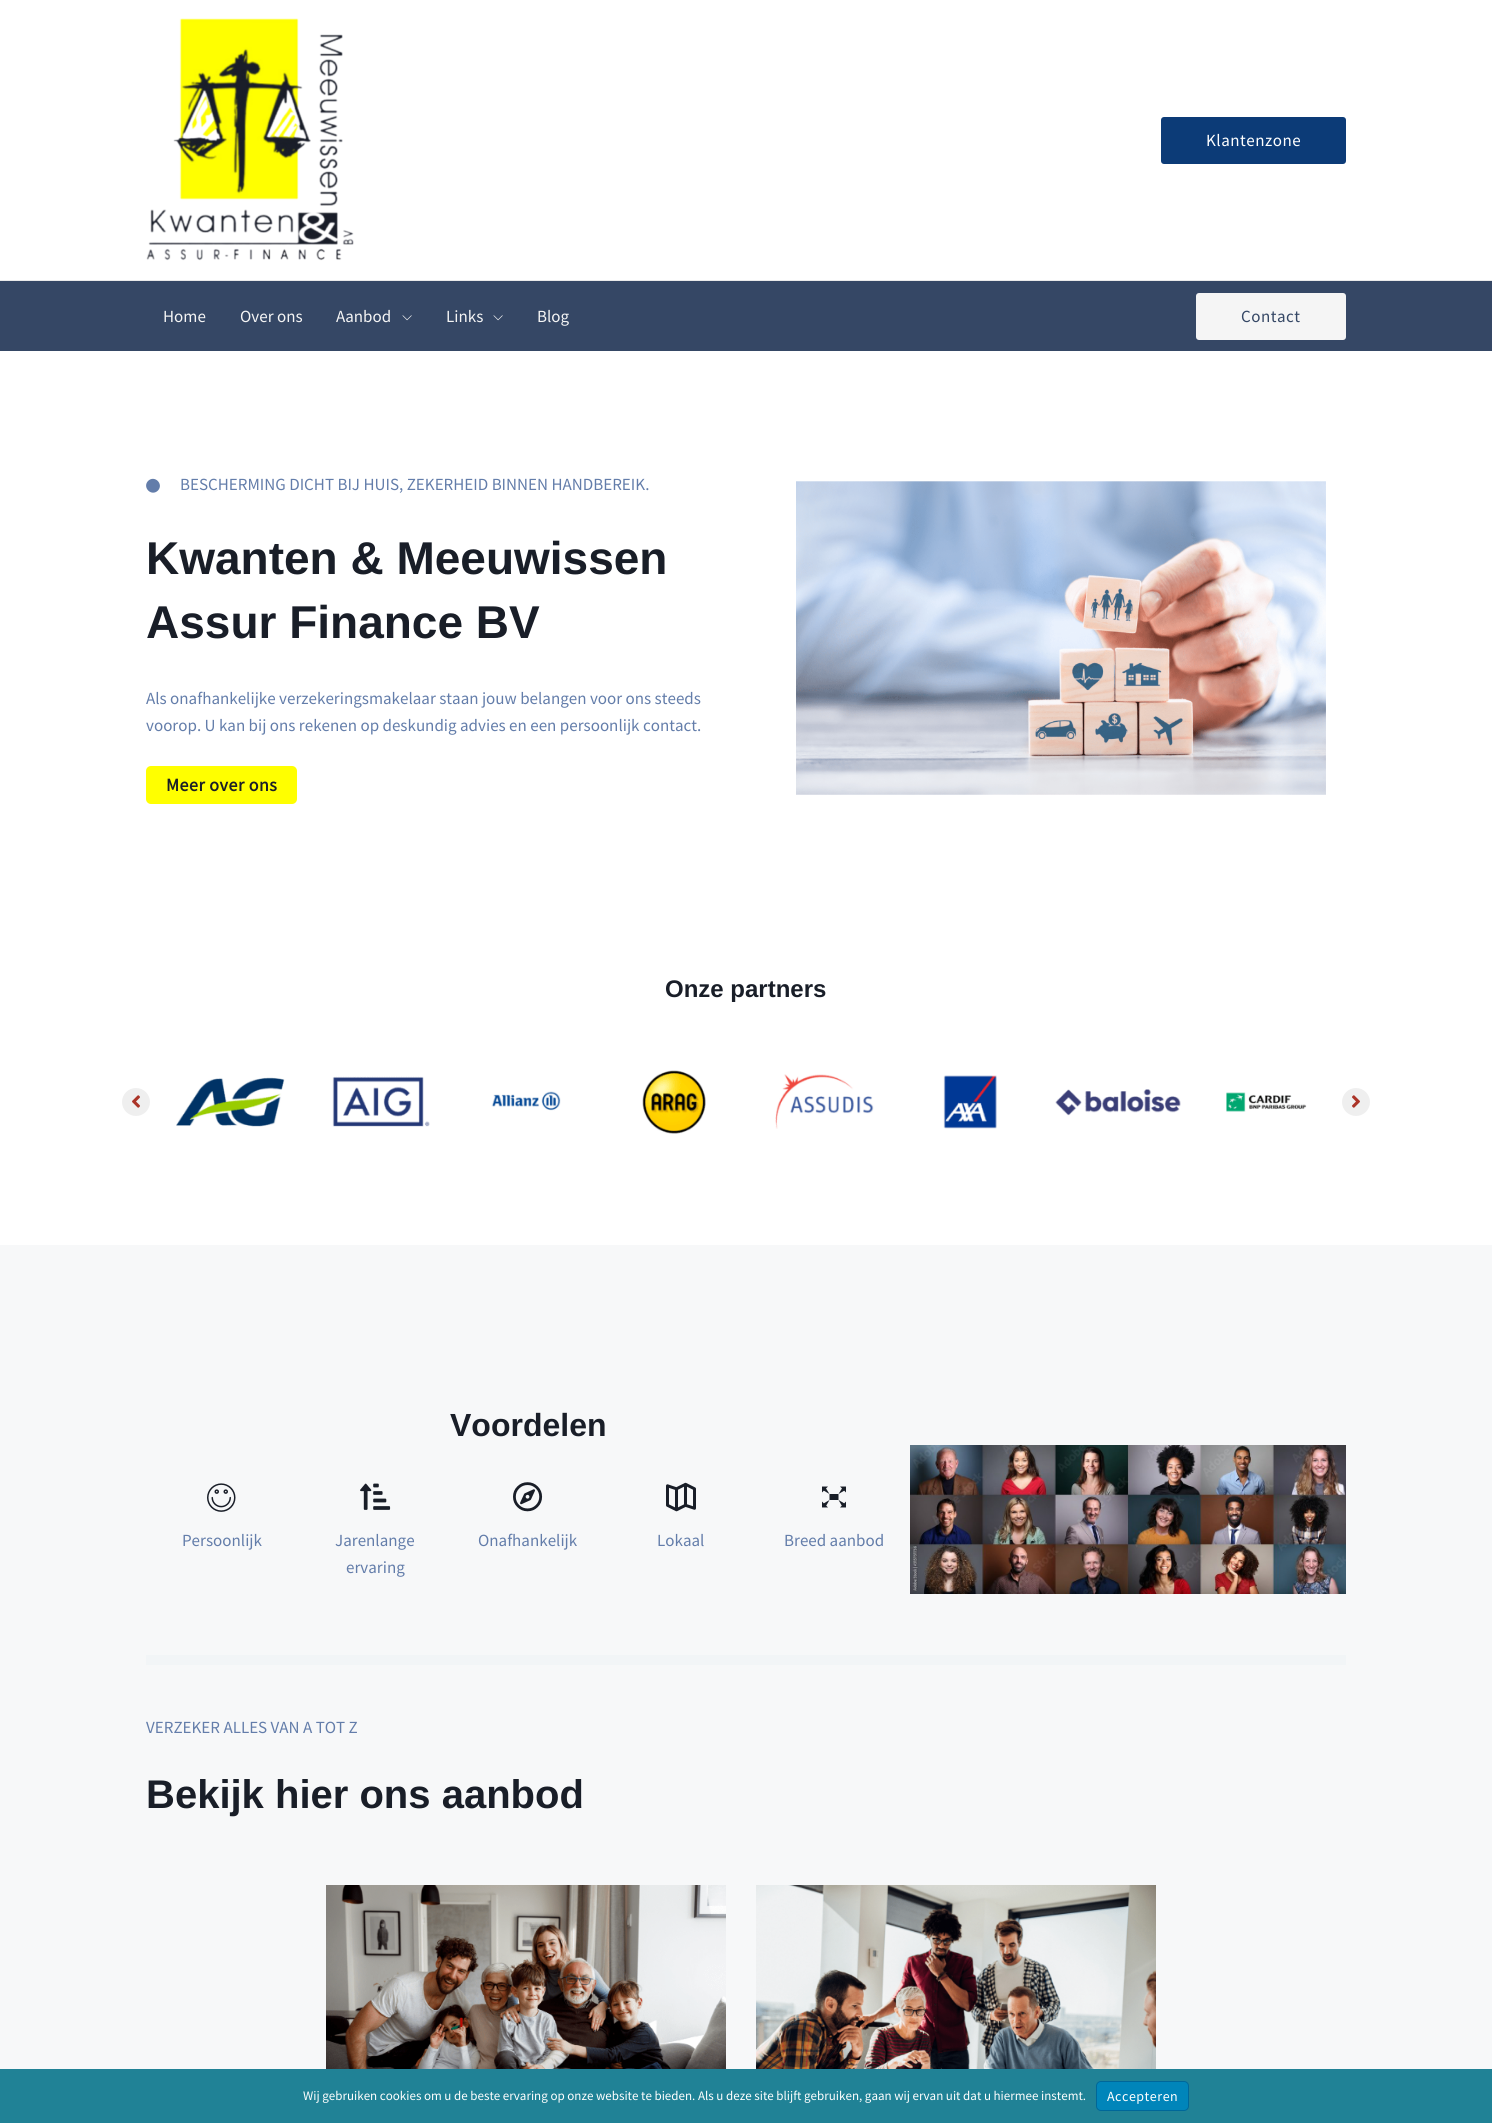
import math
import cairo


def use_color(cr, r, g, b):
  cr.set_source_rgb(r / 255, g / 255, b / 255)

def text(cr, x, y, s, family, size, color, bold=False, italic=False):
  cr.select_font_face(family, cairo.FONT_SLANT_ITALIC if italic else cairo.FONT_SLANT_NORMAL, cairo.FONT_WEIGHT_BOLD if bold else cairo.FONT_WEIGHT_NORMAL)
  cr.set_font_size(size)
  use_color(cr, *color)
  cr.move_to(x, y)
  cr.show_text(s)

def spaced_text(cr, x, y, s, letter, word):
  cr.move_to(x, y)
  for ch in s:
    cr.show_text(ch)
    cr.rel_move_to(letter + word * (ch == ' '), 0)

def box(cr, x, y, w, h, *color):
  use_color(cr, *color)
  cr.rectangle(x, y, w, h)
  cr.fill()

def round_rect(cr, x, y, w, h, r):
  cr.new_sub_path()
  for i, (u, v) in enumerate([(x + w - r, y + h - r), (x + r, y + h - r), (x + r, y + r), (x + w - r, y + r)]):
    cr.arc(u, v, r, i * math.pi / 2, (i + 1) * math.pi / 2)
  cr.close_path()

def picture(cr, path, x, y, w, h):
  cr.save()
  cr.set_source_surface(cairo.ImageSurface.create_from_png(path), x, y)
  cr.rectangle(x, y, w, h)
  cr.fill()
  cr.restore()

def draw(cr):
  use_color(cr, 255, 255, 255)
  cr.paint()
  box(cr, 0, 280, 1492, 1, 234, 234, 234)
  picture(cr, "img_01.png", 146, 18, 208, 243)
  use_color(cr, 12, 59, 119)
  round_rect(cr, 1161, 117, 185, 47, 3)
  cr.fill()
  box(cr, 0, 281, 1492, 70, 53, 71, 101)
  picture(cr, "img_02.png", 402, 315, 10, 6)
  picture(cr, "img_02.png", 493, 315, 10, 6)
  use_color(cr, 245, 245, 245)
  round_rect(cr, 1196, 293, 150, 47, 3)
  cr.fill()
  use_color(cr, 99, 125, 170)
  cr.new_path()
  cr.move_to(148, 481)
  cr.curve_to(154.5, 474.5, 164, 484, 158, 490.5)
  cr.curve_to(151.5, 497, 142, 487.5, 148, 481)
  cr.close_path()
  cr.fill()
  use_color(cr, 255, 255, 0)
  round_rect(cr, 146, 766, 151, 38, 5)
  cr.fill()
  picture(cr, "img_03.png", 796, 481, 530, 314)
  use_color(cr, 239, 239, 239)
  cr.arc(136, 1102, 14, 0, 2 * math.pi)
  cr.fill()
  picture(cr, "img_04.png", 132, 1095, 8, 13)
  picture(cr, "img_05.png", 176, 1077, 109, 50)
  picture(cr, "img_06.png", 332, 1076, 98, 51)
  picture(cr, "img_07.png", 491, 1091, 70, 20)
  picture(cr, "img_08.png", 642, 1070, 64, 64)
  picture(cr, "img_09.png", 775, 1074, 99, 55)
  picture(cr, "img_10.png", 943, 1075, 54, 54)
  picture(cr, "img_11.png", 1055, 1089, 126, 27)
  picture(cr, "img_12.png", 1226, 1092, 81, 20)
  cr.arc(1356, 1102, 14, 0, 2 * math.pi)
  cr.fill()
  picture(cr, "img_13.png", 1352, 1095, 8, 13)
  box(cr, 0, 1245, 1492, 824, 247, 248, 249)
  picture(cr, "img_14.png", 207, 1483, 29, 29)
  picture(cr, "img_15.png", 360, 1483, 31, 27)
  picture(cr, "img_16.png", 513, 1482, 30, 30)
  picture(cr, "img_17.png", 666, 1482, 30, 30)
  picture(cr, "img_18.png", 822, 1486, 24, 22)
  picture(cr, "img_19.png", 910, 1445, 436, 149)
  box(cr, 146, 1655, 1200, 10, 242, 245, 247)
  picture(cr, "img_20.png", 326, 1885, 400, 184)
  picture(cr, "img_21.png", 756, 1885, 400, 184)
  box(cr, 0, 2069, 1492, 54, 32, 130, 150)
  use_color(cr, 0, 133, 186)
  round_rect(cr, 1096.5, 2081.5, 92, 29, 4.5)
  cr.fill_preserve()
  use_color(cr, 0, 103, 153)
  cr.set_line_width(1)
  cr.stroke()
  cr.select_font_face("Source Sans Pro")
  cr.set_font_size(17)
  use_color(cr, 255, 255, 255)
  spaced_text(cr, 1206, 146, "Klantenzone", 0.5, 0)
  text(cr, 163, 322, "Home", "Source Sans Pro", 17, (245, 245, 245))
  text(cr, 240, 322, "Over ons", "Source Sans Pro", 17, (245, 245, 245))
  text(cr, 336, 322, "Aanbod", "Source Sans Pro", 17, (245, 245, 245))
  text(cr, 446, 322, "Links", "Source Sans Pro", 17, (245, 245, 245))
  text(cr, 537, 322, "Blog", "Source Sans Pro", 17, (245, 245, 245))
  use_color(cr, 53, 71, 101)
  spaced_text(cr, 1241, 322, "Contact", 0.5, 0)
  text(cr, 180, 490, "BESCHERMING DICHT BIJ HUIS, ZEKERHEID BINNEN HANDBEREIK.", "Source Sans Pro", 17, (99, 125, 170))
  text(cr, 146, 574, "Kwanten & Meeuwissen", "Liberation Sans", 46, (25, 30, 40), bold=True)
  text(cr, 146, 638, "Assur Finance BV", "Liberation Sans", 46, (25, 30, 40), bold=True)
  text(cr, 146, 704, "Als onafhankelijke verzekeringsmakelaar staan jouw belangen voor ons steeds", "Source Sans Pro", 17, (99, 125, 170))
  text(cr, 146, 731, "voorop. U kan bij ons rekenen op deskundig advies en een persoonlijk contact.", "Source Sans Pro", 17, (99, 125, 170))
  cr.select_font_face("Source Sans Pro", cairo.FONT_SLANT_NORMAL, cairo.FONT_WEIGHT_BOLD)
  cr.set_font_size(18)
  use_color(cr, 25, 30, 40)
  spaced_text(cr, 166, 791, "Meer over ons", 0.5, 0)
  text(cr, 665, 997, "Onze partners", "Liberation Sans", 24, (25, 30, 40), bold=True)
  text(cr, 450, 1436, "Voordelen", "Liberation Sans", 32, (25, 30, 40), bold=True)
  text(cr, 182, 1546, "Persoonlijk", "Source Sans Pro", 17, (99, 125, 170))
  text(cr, 335, 1546, "Jarenlange", "Source Sans Pro", 17, (99, 125, 170))
  text(cr, 346, 1573, "ervaring", "Source Sans Pro", 17, (99, 125, 170))
  text(cr, 478, 1546, "Onafhankelijk", "Source Sans Pro", 17, (99, 125, 170))
  text(cr, 657, 1546, "Lokaal", "Source Sans Pro", 17, (99, 125, 170))
  text(cr, 784, 1546, "Breed aanbod", "Source Sans Pro", 17, (99, 125, 170))
  text(cr, 146, 1733, "VERZEKER ALLES VAN A TOT Z", "Source Sans Pro", 17, (99, 125, 170))
  text(cr, 146, 1808, "Bekijk hier ons aanbod", "Liberation Sans", 40, (25, 30, 40), bold=True)
  text(cr, 303, 2100, "Wij gebruiken cookies om u de beste ervaring op onze website te bieden. Als u deze site blijft gebruiken, gaan wij ervan uit dat u hiermee instemt.", "Source Sans Pro", 13, (255, 255, 255))
  cr.set_font_size(14)
  spaced_text(cr, 1107, 2101, "Accepteren", 0.5, 0)


surface = cairo.ImageSurface(cairo.FORMAT_RGB24, 1492, 2123)
cr = cairo.Context(surface)
options = cairo.FontOptions()
options.set_hint_metrics(cairo.HINT_METRICS_OFF)
options.set_hint_style(cairo.HINT_STYLE_NONE)
cr.set_font_options(options)
cr.set_miter_limit(4)
draw(cr)
surface.write_to_png("out.png")
